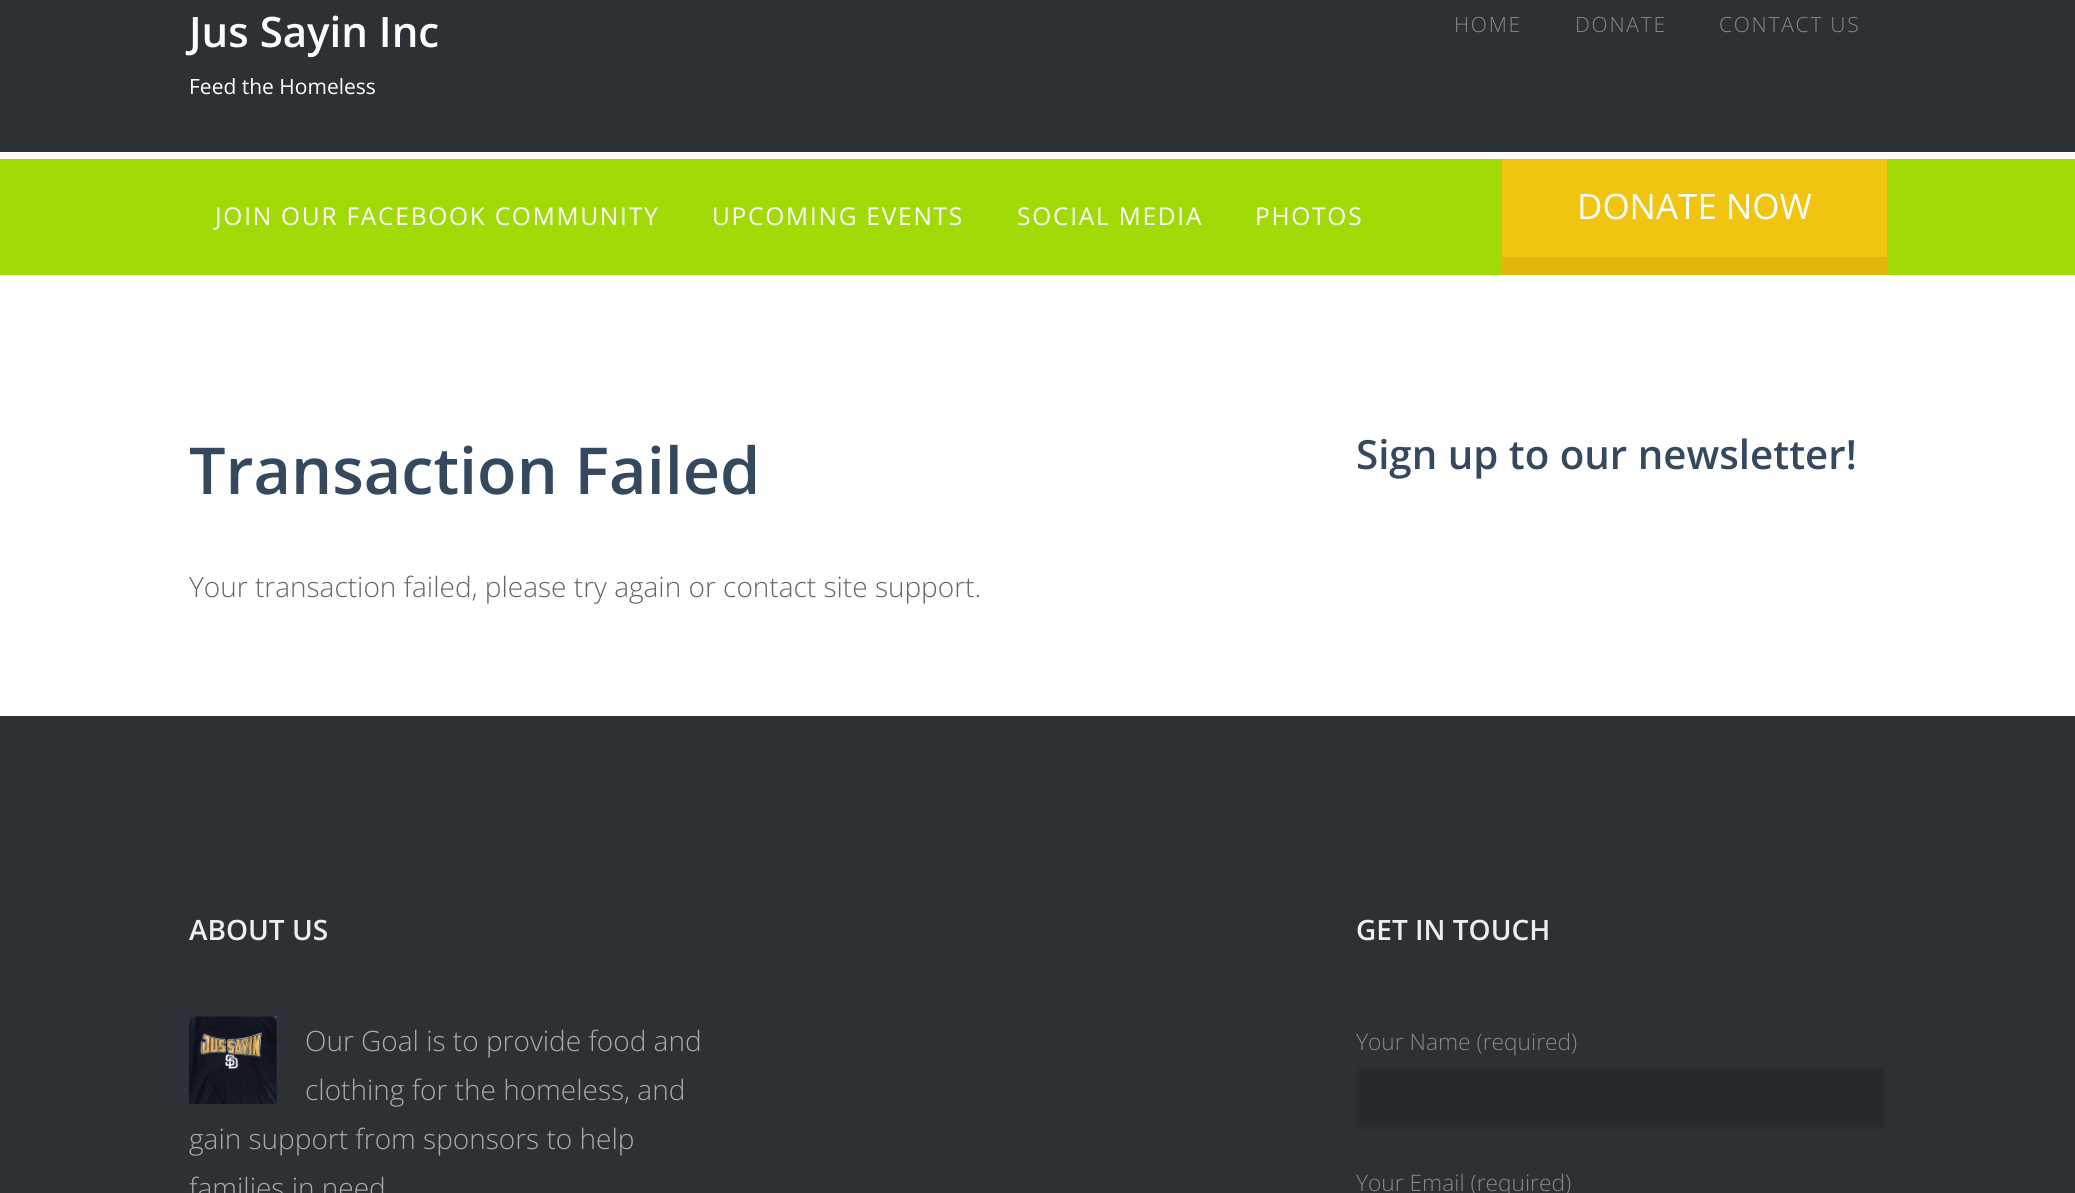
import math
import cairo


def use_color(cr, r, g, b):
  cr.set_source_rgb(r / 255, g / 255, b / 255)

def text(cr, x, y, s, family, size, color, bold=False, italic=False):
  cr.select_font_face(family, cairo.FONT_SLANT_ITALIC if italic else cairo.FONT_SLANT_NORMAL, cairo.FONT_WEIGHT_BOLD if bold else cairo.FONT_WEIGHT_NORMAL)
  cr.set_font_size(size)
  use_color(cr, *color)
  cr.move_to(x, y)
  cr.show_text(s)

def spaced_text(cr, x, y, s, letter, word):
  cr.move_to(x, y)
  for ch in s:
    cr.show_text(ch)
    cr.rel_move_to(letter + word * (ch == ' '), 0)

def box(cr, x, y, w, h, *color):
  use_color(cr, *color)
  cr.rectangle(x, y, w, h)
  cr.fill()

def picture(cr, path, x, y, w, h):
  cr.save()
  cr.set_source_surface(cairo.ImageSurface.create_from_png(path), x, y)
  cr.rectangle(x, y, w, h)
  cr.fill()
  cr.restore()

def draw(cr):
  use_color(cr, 255, 255, 255)
  cr.paint()
  box(cr, 0, 0, 2075, 152, 44, 49, 53)
  box(cr, 0, 159, 2075, 116, 162, 218, 8)
  box(cr, 1502, 159, 385, 98, 241, 196, 15)
  box(cr, 1502, 257, 385, 18, 226, 183, 9)
  box(cr, 0, 716, 2075, 477, 44, 49, 53)
  picture(cr, "img_01.png", 189, 1016, 88, 88)
  use_color(cr, 37, 42, 46)
  cr.rectangle(1358, 1068, 527, 61)
  cr.fill_preserve()
  use_color(cr, 46, 46, 46)
  cr.set_line_width(4)
  cr.stroke()
  text(cr, 189, 47, "Jus Sayin Inc", "Open Sans SemiBold", 42, (255, 255, 255))
  text(cr, 189, 94, "Feed the Homeless", "Open Sans", 21, (255, 255, 255))
  cr.select_font_face("Open Sans Light")
  use_color(cr, 136, 136, 136)
  spaced_text(cr, 1454, 32, "HOME", 1.75, 0)
  spaced_text(cr, 1575, 32, "DONATE", 1.75, 0)
  spaced_text(cr, 1719, 32, "CONTACT US", 1.75, 0)
  cr.select_font_face("Open Sans")
  cr.set_font_size(24.5)
  use_color(cr, 255, 255, 255)
  spaced_text(cr, 215, 225, "JOIN OUR FACEBOOK COMMUNITY", 1.75, 0)
  spaced_text(cr, 712, 225, "UPCOMING EVENTS", 1.75, 0)
  spaced_text(cr, 1017, 225, "SOCIAL MEDIA", 1.75, 0)
  spaced_text(cr, 1255, 225, "PHOTOS", 1.75, 0)
  text(cr, 1577, 219, "DONATE NOW", "Open Sans", 35, (255, 255, 255))
  text(cr, 189, 494, "Transaction Failed", "Open Sans SemiBold", 64.75, (52, 73, 94))
  text(cr, 189, 597, "Your transaction failed, please try again or contact site support.", "Open Sans Light", 28, (102, 102, 102))
  text(cr, 1356, 469, "Sign up to our newsletter!", "Open Sans SemiBold", 40.25, (52, 73, 94))
  text(cr, 189, 940, "ABOUT US", "Open Sans SemiBold", 28, (238, 238, 238))
  text(cr, 305, 1051, "Our Goal is to provide food and", "Open Sans Light", 28, (170, 170, 170))
  text(cr, 305, 1100, "clothing for the homeless, and", "Open Sans Light", 28, (170, 170, 170))
  text(cr, 189, 1149, "gain support from sponsors to help", "Open Sans Light", 28, (170, 170, 170))
  text(cr, 189, 1198, "families in need", "Open Sans Light", 28, (170, 170, 170))
  text(cr, 1356, 940, "GET IN TOUCH", "Open Sans SemiBold", 28, (238, 238, 238))
  text(cr, 1356, 1050, "Your Name (required)", "Open Sans Light", 22.75, (136, 136, 136))
  text(cr, 1356, 1191, "Your Email (required)", "Open Sans Light", 22.75, (136, 136, 136))


surface = cairo.ImageSurface(cairo.FORMAT_RGB24, 2075, 1193)
cr = cairo.Context(surface)
options = cairo.FontOptions()
options.set_hint_metrics(cairo.HINT_METRICS_OFF)
options.set_hint_style(cairo.HINT_STYLE_NONE)
cr.set_font_options(options)
cr.set_miter_limit(4)
draw(cr)
surface.write_to_png("out.png")
